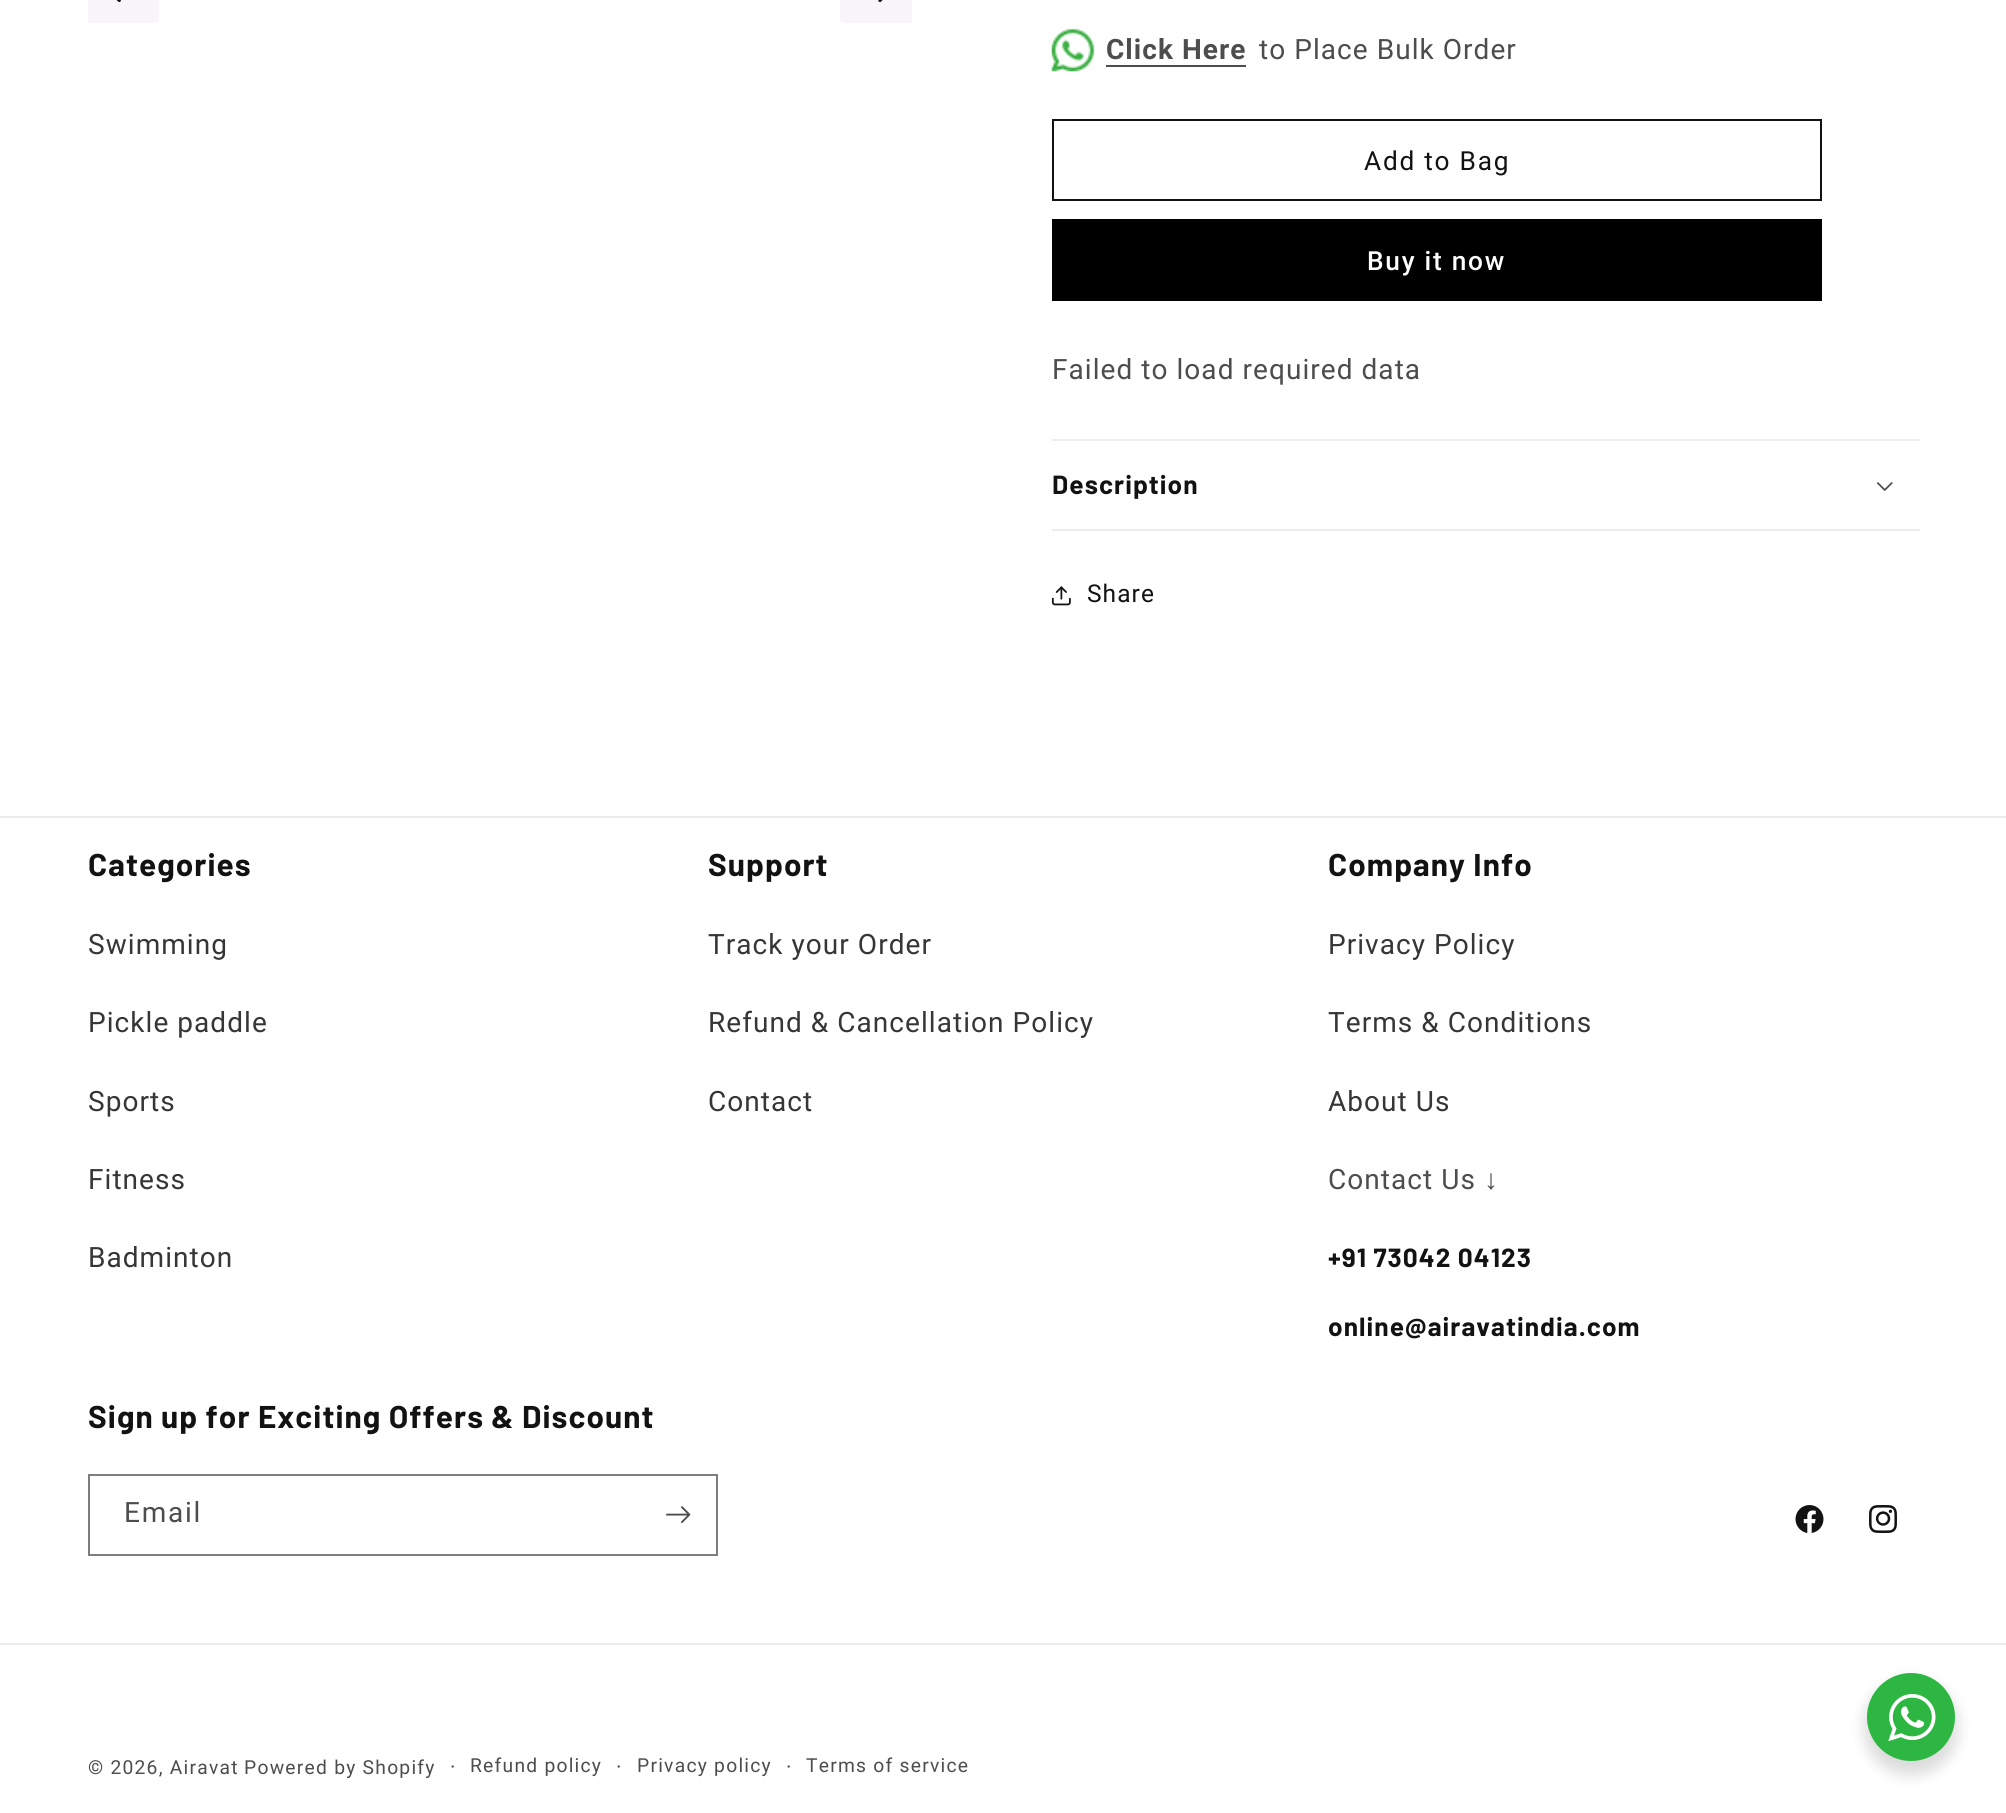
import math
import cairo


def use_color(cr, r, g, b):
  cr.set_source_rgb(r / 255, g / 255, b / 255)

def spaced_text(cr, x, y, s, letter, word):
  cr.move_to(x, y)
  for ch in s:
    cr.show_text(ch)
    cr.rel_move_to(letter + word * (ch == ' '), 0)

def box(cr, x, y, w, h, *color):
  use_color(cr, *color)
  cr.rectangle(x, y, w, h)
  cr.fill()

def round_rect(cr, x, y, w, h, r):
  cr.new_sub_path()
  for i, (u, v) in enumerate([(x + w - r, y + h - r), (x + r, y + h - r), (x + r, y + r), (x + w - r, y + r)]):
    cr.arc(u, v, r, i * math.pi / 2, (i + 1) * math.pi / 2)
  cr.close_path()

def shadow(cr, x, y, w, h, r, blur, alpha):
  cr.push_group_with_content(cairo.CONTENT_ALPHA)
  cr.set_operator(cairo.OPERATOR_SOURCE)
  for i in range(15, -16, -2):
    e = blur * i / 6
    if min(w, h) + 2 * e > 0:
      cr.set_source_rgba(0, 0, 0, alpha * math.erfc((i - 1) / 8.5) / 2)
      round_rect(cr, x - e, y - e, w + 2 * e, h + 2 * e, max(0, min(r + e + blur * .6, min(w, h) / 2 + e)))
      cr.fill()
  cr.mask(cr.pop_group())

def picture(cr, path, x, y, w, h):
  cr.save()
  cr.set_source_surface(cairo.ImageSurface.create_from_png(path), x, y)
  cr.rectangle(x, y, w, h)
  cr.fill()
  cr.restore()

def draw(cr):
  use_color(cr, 255, 255, 255)
  cr.paint()
  cr.save()
  cr.rectangle(88, 0, 824, 551)
  cr.clip()
  use_color(cr, 248, 246, 248)
  round_rect(cr, 86, -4, 73, 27, 4)
  cr.fill()
  cr.restore()
  picture(cr, "img_01.png", 116, 0, 5, 2)
  cr.save()
  cr.rectangle(88, 0, 824, 551)
  cr.clip()
  use_color(cr, 248, 246, 248)
  round_rect(cr, 840, -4, 74, 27, 4)
  cr.fill()
  cr.restore()
  picture(cr, "img_02.png", 878, 0, 5, 2)
  picture(cr, "img_03.png", 1051, 28, 44, 44)
  box(cr, 1106, 65, 140, 2, 77, 77, 77)
  cr.rectangle(1053, 120, 768, 80)
  use_color(cr, 18, 18, 18)
  cr.stroke()
  box(cr, 1052, 219, 770, 82, 0, 0, 0)
  box(cr, 1052, 439, 868, 2, 236, 236, 236)
  box(cr, 1052, 529, 868, 2, 236, 236, 236)
  picture(cr, "img_04.png", 1877, 482, 16, 9)
  picture(cr, "img_05.png", 1051, 586, 20, 20)
  box(cr, 0, 816, 2006, 2, 236, 236, 236)
  cr.rectangle(89, 1475, 628, 80)
  use_color(cr, 125, 125, 125)
  cr.stroke()
  picture(cr, "img_06.png", 666, 1506, 25, 17)
  picture(cr, "img_07.png", 1795, 1505, 29, 28)
  picture(cr, "img_08.png", 1869, 1505, 28, 28)
  box(cr, 0, 1643, 2006, 2, 236, 236, 236)
  use_color(cr, 0, 0, 0)
  shadow(cr, 1864, 1680, 94, 95, 47, 7, 0.14)
  use_color(cr, 45, 183, 66)
  cr.arc(1911, 1717, 44, 0, 2 * math.pi)
  cr.fill()
  picture(cr, "img_09.png", 1888, 1694, 48, 47)
  cr.select_font_face("Roboto", cairo.FONT_SLANT_NORMAL, cairo.FONT_WEIGHT_BOLD)
  cr.set_font_size(28)
  use_color(cr, 77, 77, 77)
  spaced_text(cr, 1106, 59, "Click Here", 1.05, 0)
  cr.select_font_face("Roboto")
  spaced_text(cr, 1259, 59, "to Place Bulk Order", 1.05, 0)
  cr.set_font_size(26.25)
  use_color(cr, 18, 18, 18)
  spaced_text(cr, 1364, 170, "Add to Bag", 1.75, 0)
  cr.select_font_face("Roboto Medium")
  use_color(cr, 255, 255, 255)
  spaced_text(cr, 1367, 270, "Buy it now", 1.75, 0)
  cr.select_font_face("Roboto")
  cr.set_font_size(28)
  use_color(cr, 77, 77, 77)
  spaced_text(cr, 1052, 379, "Failed to load required data", 1.05, 0)
  cr.select_font_face("Barlow", cairo.FONT_SLANT_NORMAL, cairo.FONT_WEIGHT_BOLD)
  cr.set_font_size(26.25)
  use_color(cr, 18, 18, 18)
  spaced_text(cr, 1052, 494, "Description", 1.05, 0)
  cr.select_font_face("Roboto")
  cr.set_font_size(24.5)
  spaced_text(cr, 1087, 602, "Share", 1.05, 0)
  cr.select_font_face("Barlow", cairo.FONT_SLANT_NORMAL, cairo.FONT_WEIGHT_BOLD)
  cr.set_font_size(31.5)
  spaced_text(cr, 88, 876, "Categories", 1.05, 0)
  cr.select_font_face("Roboto")
  cr.set_font_size(28)
  use_color(cr, 54, 54, 54)
  spaced_text(cr, 88, 954, "Swimming", 1.05, 0)
  spaced_text(cr, 88, 1032, "Pickle paddle", 1.05, 0)
  spaced_text(cr, 88, 1111, "Sports", 1.05, 0)
  spaced_text(cr, 88, 1189, "Fitness", 1.05, 0)
  spaced_text(cr, 88, 1267, "Badminton", 1.05, 0)
  cr.select_font_face("Barlow", cairo.FONT_SLANT_NORMAL, cairo.FONT_WEIGHT_BOLD)
  cr.set_font_size(31.5)
  use_color(cr, 18, 18, 18)
  spaced_text(cr, 708, 876, "Support", 1.05, 0)
  cr.select_font_face("Roboto")
  cr.set_font_size(28)
  use_color(cr, 54, 54, 54)
  spaced_text(cr, 708, 954, "Track your Order", 1.05, 0)
  spaced_text(cr, 708, 1032, "Refund & Cancellation Policy", 1.05, 0)
  spaced_text(cr, 708, 1111, "Contact", 1.05, 0)
  cr.select_font_face("Barlow", cairo.FONT_SLANT_NORMAL, cairo.FONT_WEIGHT_BOLD)
  cr.set_font_size(31.5)
  use_color(cr, 18, 18, 18)
  spaced_text(cr, 1328, 876, "Company Info", 1.05, 0)
  cr.select_font_face("Roboto")
  cr.set_font_size(28)
  use_color(cr, 54, 54, 54)
  spaced_text(cr, 1328, 954, "Privacy Policy", 1.05, 0)
  spaced_text(cr, 1328, 1032, "Terms & Conditions", 1.05, 0)
  spaced_text(cr, 1328, 1111, "About Us", 1.05, 0)
  use_color(cr, 77, 77, 77)
  spaced_text(cr, 1328, 1189, "Contact Us", 1.05, 0)
  cr.select_font_face("Liberation Sans")
  spaced_text(cr, 1484, 1189, "↓", 1.05, 0)
  cr.select_font_face("Barlow", cairo.FONT_SLANT_NORMAL, cairo.FONT_WEIGHT_BOLD)
  cr.set_font_size(26.25)
  use_color(cr, 18, 18, 18)
  spaced_text(cr, 1328, 1267, "+91 73042 04123", 1.05, 0)
  spaced_text(cr, 1328, 1336, "online@airavatindia.com", 1.05, 0)
  cr.set_font_size(31.5)
  spaced_text(cr, 88, 1428, "Sign up for Exciting Offers & Discount", 1.05, 0)
  cr.select_font_face("Roboto")
  cr.set_font_size(28)
  use_color(cr, 77, 77, 77)
  spaced_text(cr, 124, 1522, "Email", 1.75, 0)
  cr.set_font_size(19.25)
  spaced_text(cr, 88, 1774, "© 2026, Airavat", 1.25, 0)
  spaced_text(cr, 244, 1774, "Powered by Shopify", 1.25, 0)
  cr.set_font_size(21)
  spaced_text(cr, 450, 1774, "·", 1.25, 0)
  cr.set_font_size(19.25)
  spaced_text(cr, 470, 1772, "Refund policy", 1.25, 0)
  cr.set_font_size(21)
  spaced_text(cr, 616, 1774, "·", 1.25, 0)
  cr.set_font_size(19.25)
  spaced_text(cr, 637, 1772, "Privacy policy", 1.25, 0)
  cr.set_font_size(21)
  spaced_text(cr, 786, 1774, "·", 1.25, 0)
  cr.set_font_size(19.25)
  spaced_text(cr, 806, 1772, "Terms of service", 1.25, 0)


surface = cairo.ImageSurface(cairo.FORMAT_RGB24, 2006, 1813)
cr = cairo.Context(surface)
options = cairo.FontOptions()
options.set_hint_metrics(cairo.HINT_METRICS_OFF)
options.set_hint_style(cairo.HINT_STYLE_NONE)
cr.set_font_options(options)
cr.set_miter_limit(4)
draw(cr)
surface.write_to_png("out.png")
